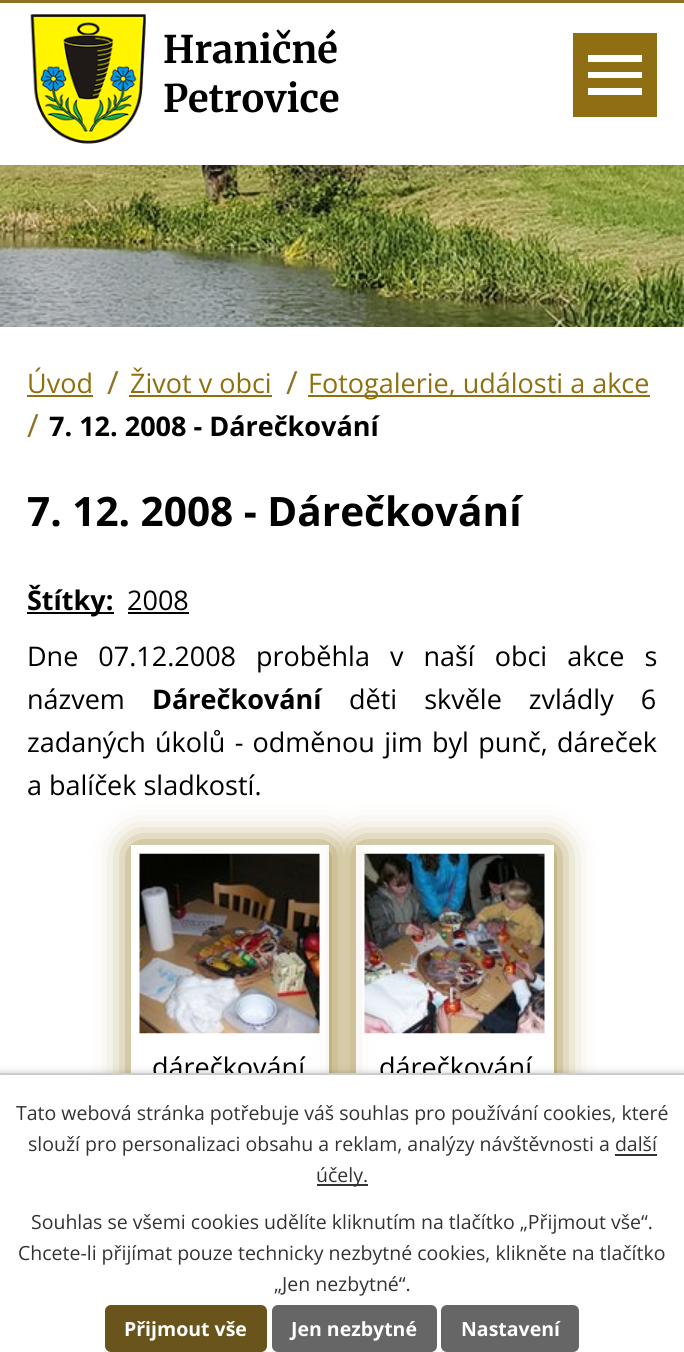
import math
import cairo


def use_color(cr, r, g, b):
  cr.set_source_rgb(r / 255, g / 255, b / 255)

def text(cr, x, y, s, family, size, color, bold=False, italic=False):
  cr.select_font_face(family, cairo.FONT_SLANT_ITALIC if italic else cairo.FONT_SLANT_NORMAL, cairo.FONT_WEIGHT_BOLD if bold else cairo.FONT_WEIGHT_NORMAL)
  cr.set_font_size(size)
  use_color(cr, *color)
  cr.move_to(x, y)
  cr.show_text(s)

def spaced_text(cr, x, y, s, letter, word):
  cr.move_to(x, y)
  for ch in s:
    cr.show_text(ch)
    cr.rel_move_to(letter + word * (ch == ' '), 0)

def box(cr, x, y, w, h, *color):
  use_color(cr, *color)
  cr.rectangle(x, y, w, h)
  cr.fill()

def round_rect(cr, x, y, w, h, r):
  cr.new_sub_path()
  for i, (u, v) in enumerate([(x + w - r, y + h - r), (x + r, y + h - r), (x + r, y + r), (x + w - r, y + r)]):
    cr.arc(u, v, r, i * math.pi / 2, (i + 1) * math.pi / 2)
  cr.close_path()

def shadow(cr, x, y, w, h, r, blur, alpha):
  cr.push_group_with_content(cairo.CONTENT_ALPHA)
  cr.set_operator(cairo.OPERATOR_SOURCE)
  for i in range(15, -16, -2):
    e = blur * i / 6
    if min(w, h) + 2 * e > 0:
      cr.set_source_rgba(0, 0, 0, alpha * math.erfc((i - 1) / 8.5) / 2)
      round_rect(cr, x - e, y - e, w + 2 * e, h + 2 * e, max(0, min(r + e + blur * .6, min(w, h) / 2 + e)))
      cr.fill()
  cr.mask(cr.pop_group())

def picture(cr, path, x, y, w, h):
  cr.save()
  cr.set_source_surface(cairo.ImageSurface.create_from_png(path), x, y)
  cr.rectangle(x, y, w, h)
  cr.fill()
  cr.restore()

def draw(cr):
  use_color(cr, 255, 255, 255)
  cr.paint()
  picture(cr, "img_01.png", 0, 165, 684, 162)
  box(cr, 0, 0, 684, 3, 142, 114, 37)
  picture(cr, "img_02.png", 30, 14, 116, 130)
  box(cr, 573, 33, 84, 84, 143, 110, 20)
  use_color(cr, 255, 255, 255)
  cr.new_path()
  cr.move_to(588, 95)
  cr.line_to(588, 88)
  cr.line_to(642, 88)
  cr.line_to(642, 95)
  cr.close_path()
  cr.move_to(588, 55)
  cr.line_to(642, 55)
  cr.line_to(642, 62)
  cr.line_to(588, 62)
  cr.close_path()
  cr.move_to(588, 78)
  cr.line_to(588, 72)
  cr.line_to(642, 72)
  cr.line_to(642, 78)
  cr.close_path()
  cr.fill()
  box(cr, 27, 395, 66, 2, 142, 112, 14)
  box(cr, 129, 395, 143, 2, 142, 112, 14)
  box(cr, 308, 395, 342, 2, 142, 112, 14)
  box(cr, 27, 612, 87, 2, 0, 0, 0)
  box(cr, 128, 612, 61, 2, 0, 0, 0)
  cr.save()
  cr.set_fill_rule(cairo.FILL_RULE_EVEN_ODD)
  cr.new_path()
  cr.move_to(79, 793)
  cr.line_to(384, 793)
  cr.line_to(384, 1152)
  cr.line_to(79, 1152)
  cr.close_path()
  cr.move_to(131, 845)
  cr.line_to(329, 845)
  cr.line_to(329, 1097)
  cr.line_to(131, 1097)
  cr.close_path()
  cr.clip()
  use_color(cr, 142, 112, 14)
  shadow(cr, 134, 848, 195, 249, 0, 18, 1)
  cr.restore()
  picture(cr, "img_03.png", 139, 853, 181, 181)
  cr.save()
  cr.set_fill_rule(cairo.FILL_RULE_EVEN_ODD)
  cr.new_path()
  cr.move_to(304, 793)
  cr.line_to(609, 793)
  cr.line_to(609, 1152)
  cr.line_to(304, 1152)
  cr.close_path()
  cr.move_to(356, 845)
  cr.line_to(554, 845)
  cr.line_to(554, 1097)
  cr.line_to(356, 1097)
  cr.close_path()
  cr.clip()
  use_color(cr, 142, 112, 14)
  shadow(cr, 359, 848, 195, 249, 0, 18, 1)
  cr.restore()
  box(cr, 365, 854, 5, 180, 255, 255, 255)
  picture(cr, "img_04.png", 364, 853, 181, 181)
  use_color(cr, 0, 0, 0)
  shadow(cr, 0, 1073, 684, 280, 0, 4, 0.2)
  text(cr, 163, 63, "Hraničné", "Merriweather Light", 38, (0, 0, 0))
  text(cr, 163, 112, "Petrovice", "Merriweather Light", 38, (0, 0, 0))
  text(cr, 27, 393, "Úvod", "Open Sans", 27, (142, 112, 14))
  text(cr, 107, 394, "/", "Open Sans", 32, (142, 114, 37))
  text(cr, 130, 393, "Život v obci", "Open Sans", 27, (142, 112, 14))
  text(cr, 286, 394, "/", "Open Sans", 32, (142, 114, 37))
  text(cr, 308, 393, "Fotogalerie, události a akce", "Open Sans", 27, (142, 112, 14))
  text(cr, 27, 437, "/", "Open Sans", 32, (142, 114, 37))
  text(cr, 49, 436, "7. 12. 2008 - Dárečkování", "Open Sans", 27, (0, 0, 0), bold=True)
  text(cr, 27, 526, "7. 12. 2008 - Dárečkování", "Open Sans", 40.5, (0, 0, 0), bold=True)
  text(cr, 27, 610, "Štítky:", "Open Sans", 27, (0, 0, 0), bold=True)
  text(cr, 127, 610, "2008", "Open Sans", 27, (0, 0, 0))
  spaced_text(cr, 27, 666, "Dne 07.12.2008 proběhla v naší obci akce s", 0, 13)
  text(cr, 27, 709, "názvem", "Open Sans", 27, (0, 0, 0))
  text(cr, 152, 709, "Dárečkování", "Open Sans", 27, (0, 0, 0), bold=True)
  cr.select_font_face("Open Sans")
  spaced_text(cr, 349, 709, "děti skvěle zvládly 6", 0, 20)
  spaced_text(cr, 27, 752, "zadaných úkolů - odměnou jim byl punč, dáreček", 0, 2.25)
  text(cr, 27, 795, "a balíček sladkostí.", "Open Sans", 27, (0, 0, 0))
  text(cr, 152, 1077, "dárečkování", "Open Sans", 27, (0, 0, 0))
  text(cr, 379, 1077, "dárečkování", "Open Sans", 27, (0, 0, 0))
  box(cr, 0, 1075, 684, 277, 255, 255, 255)
  box(cr, 0, 1073, 684, 2, 204, 204, 204)
  text(cr, 16, 1120, "Tato webová stránka potřebuje váš souhlas pro používání cookies, které", "Open Sans", 19.5, (51, 51, 51))
  text(cr, 28, 1151, "slouží pro personalizaci obsahu a reklam, analýzy návštěvnosti a další", "Open Sans", 19.5, (51, 51, 51))
  box(cr, 615, 1154, 42, 2, 51, 51, 51)
  box(cr, 317, 1184, 51, 2, 51, 51, 51)
  text(cr, 316, 1182, "účely.", "Open Sans", 19.5, (51, 51, 51))
  text(cr, 31, 1229, "Souhlas se všemi cookies udělíte kliknutím na tlačítko „Přijmout vše“.", "Open Sans", 19.5, (51, 51, 51))
  text(cr, 18, 1260, "Chcete-li přijímat pouze technicky nezbytné cookies, klikněte na tlačítko", "Open Sans", 19.5, (51, 51, 51))
  text(cr, 274, 1291, "„Jen nezbytné“.", "Open Sans", 19.5, (51, 51, 51))
  use_color(cr, 105, 85, 27)
  round_rect(cr, 105, 1305, 162, 47, 6)
  cr.fill()
  text(cr, 124, 1336, "Přijmout vše", "Open Sans", 19.5, (255, 255, 255), bold=True)
  use_color(cr, 102, 102, 102)
  round_rect(cr, 272, 1305, 165, 47, 6)
  cr.fill()
  text(cr, 291, 1336, "Jen nezbytné", "Open Sans", 19.5, (255, 255, 255), bold=True)
  use_color(cr, 102, 102, 102)
  round_rect(cr, 441, 1305, 138, 47, 6)
  cr.fill()
  text(cr, 461, 1336, "Nastavení", "Open Sans", 19.5, (255, 255, 255), bold=True)


surface = cairo.ImageSurface(cairo.FORMAT_RGB24, 684, 1352)
cr = cairo.Context(surface)
options = cairo.FontOptions()
options.set_hint_metrics(cairo.HINT_METRICS_OFF)
options.set_hint_style(cairo.HINT_STYLE_NONE)
cr.set_font_options(options)
cr.set_miter_limit(4)
draw(cr)
surface.write_to_png("out.png")
